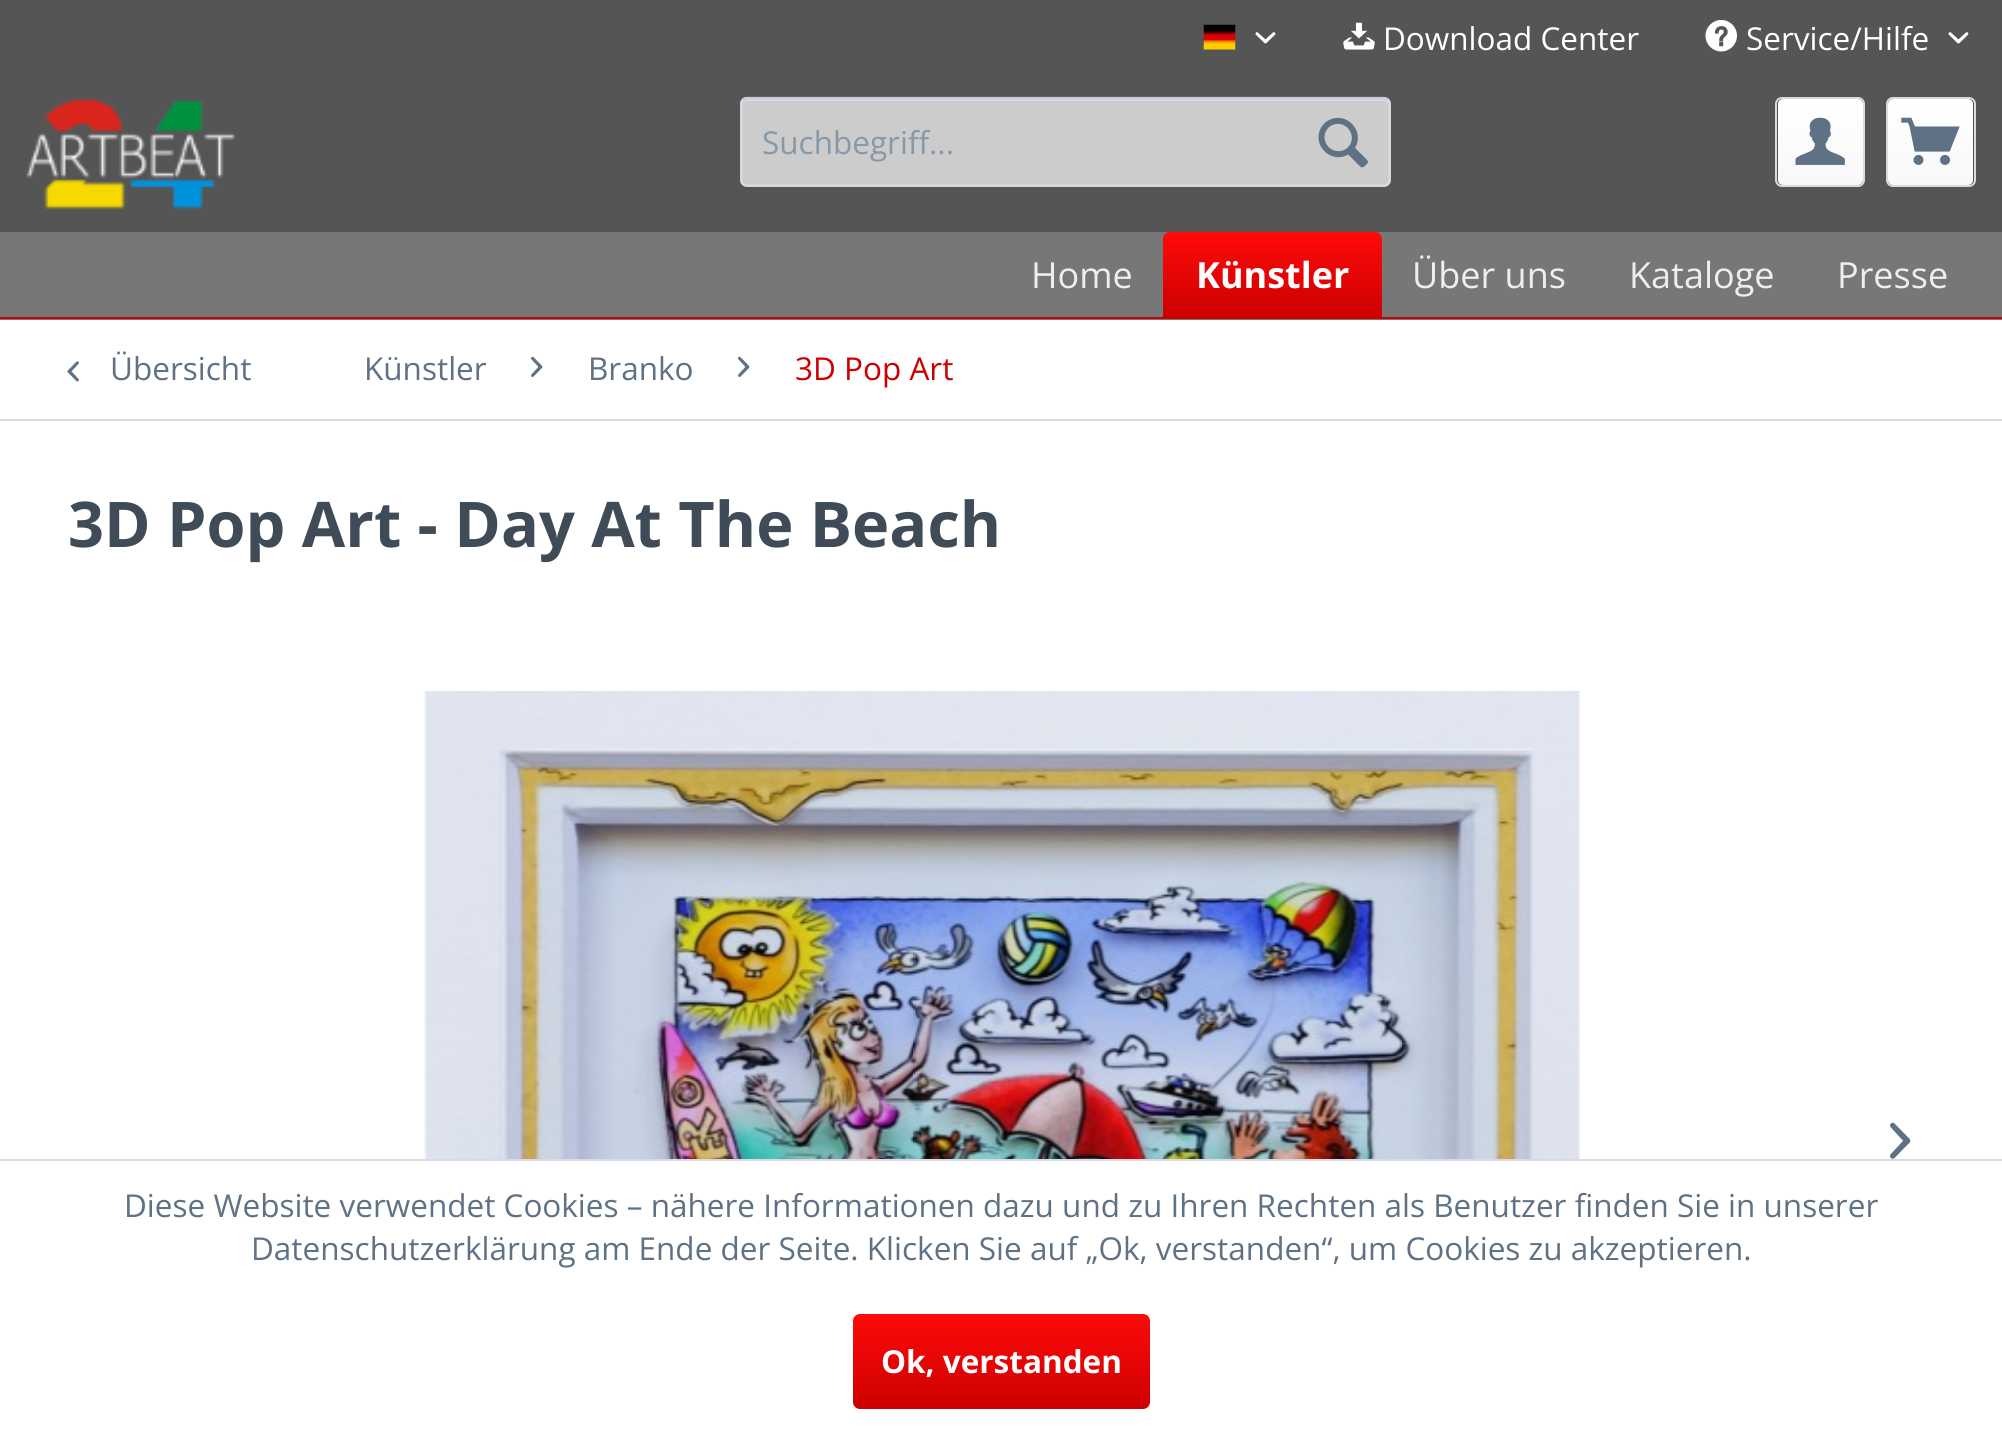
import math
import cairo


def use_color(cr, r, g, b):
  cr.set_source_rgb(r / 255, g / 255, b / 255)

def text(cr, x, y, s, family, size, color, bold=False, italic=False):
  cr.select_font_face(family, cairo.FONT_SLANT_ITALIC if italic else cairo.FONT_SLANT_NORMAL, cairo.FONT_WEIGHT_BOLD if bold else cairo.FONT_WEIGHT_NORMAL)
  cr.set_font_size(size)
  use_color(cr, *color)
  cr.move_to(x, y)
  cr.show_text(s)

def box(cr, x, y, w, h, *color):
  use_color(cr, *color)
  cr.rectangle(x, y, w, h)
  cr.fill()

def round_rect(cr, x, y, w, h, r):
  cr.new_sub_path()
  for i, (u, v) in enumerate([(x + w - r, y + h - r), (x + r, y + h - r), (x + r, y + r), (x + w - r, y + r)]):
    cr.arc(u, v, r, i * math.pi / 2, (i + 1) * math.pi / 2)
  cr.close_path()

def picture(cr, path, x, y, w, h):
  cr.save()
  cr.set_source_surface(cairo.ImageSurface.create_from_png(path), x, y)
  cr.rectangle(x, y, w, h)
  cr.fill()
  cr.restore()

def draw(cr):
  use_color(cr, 85, 85, 85)
  cr.paint()
  picture(cr, "img_01.png", 1203, 24, 33, 26)
  picture(cr, "img_02.png", 1255, 32, 21, 12)
  picture(cr, "img_03.png", 1343, 22, 32, 28)
  picture(cr, "img_04.png", 1705, 20, 32, 32)
  picture(cr, "img_02.png", 1948, 32, 21, 12)
  picture(cr, "img_05.png", 26, 98, 209, 112)
  use_color(cr, 204, 204, 204)
  round_rect(cr, 740, 97, 651, 90, 7)
  cr.fill()
  use_color(cr, 218, 218, 229)
  cr.new_path()
  cr.move_to(747, 101)
  cr.line_to(1384, 101)
  cr.curve_to(1386, 101, 1388, 103, 1388, 106)
  cr.line_to(1388, 104)
  cr.curve_to(1388, 101, 1386, 99, 1383, 99)
  cr.line_to(748, 99)
  cr.curve_to(746, 99, 744, 101, 743, 103)
  cr.curve_to(744, 102, 746, 101, 747, 101)
  cr.close_path()
  cr.fill()
  cr.new_path()
  cr.move_to(743, 99.5)
  cr.curve_to(744, 98.5, 745.5, 98, 747, 98)
  cr.line_to(1384, 98)
  cr.curve_to(1385, 98, 1386.5, 98.5, 1387.5, 99.5)
  use_color(cr, 203, 203, 219)
  cr.set_line_width(2.2)
  cr.stroke()
  cr.new_path()
  cr.move_to(1387.5, 99.5)
  cr.curve_to(1389, 100.5, 1389.5, 102, 1389.5, 103.5)
  cr.line_to(1389.5, 180)
  cr.curve_to(1389.5, 181.5, 1389, 183, 1387.5, 184)
  cr.curve_to(1386.5, 185, 1385, 185.5, 1384, 185.5)
  cr.line_to(747, 185.5)
  cr.curve_to(745.5, 185.5, 744, 185, 743, 184)
  cr.curve_to(742, 183, 741.5, 181.5, 741.5, 180)
  cr.line_to(741.5, 103.5)
  cr.curve_to(741.5, 102, 742, 100.5, 743, 99.5)
  use_color(cr, 218, 218, 229)
  cr.stroke()
  picture(cr, "img_06.png", 1318, 117, 50, 51)
  gradient = cairo.LinearGradient(1820, 99, 1820, 185)
  gradient.add_color_stop_rgba(0, 1, 1, 1, 1)
  gradient.add_color_stop_rgba(1, 0.973, 0.973, 0.98, 1)
  cr.set_source(gradient)
  round_rect(cr, 1778, 99, 85, 86, 5)
  cr.fill()
  round_rect(cr, 1776, 98, 88, 88, 6)
  use_color(cr, 218, 218, 229)
  cr.set_line_width(2)
  cr.stroke()
  picture(cr, "img_07.png", 1795, 117, 50, 48)
  gradient = cairo.LinearGradient(1931, 99, 1931, 185)
  gradient.add_color_stop_rgba(0, 1, 1, 1, 1)
  gradient.add_color_stop_rgba(1, 0.973, 0.973, 0.98, 1)
  cr.set_source(gradient)
  round_rect(cr, 1888, 99, 85, 86, 5)
  cr.fill()
  round_rect(cr, 1887, 98, 88, 88, 6)
  use_color(cr, 218, 218, 229)
  cr.stroke()
  picture(cr, "img_08.png", 1901, 117, 59, 48)
  box(cr, 0, 319, 2002, 1, 119, 119, 119)
  box(cr, 0, 317, 2002, 2, 204, 0, 0)
  box(cr, 0, 232, 2002, 85, 119, 119, 119)
  gradient = cairo.LinearGradient(1272, 232, 1272, 317)
  gradient.add_color_stop_rgba(0, 1, 0.039, 0.039, 1)
  gradient.add_color_stop_rgba(1, 0.8, 0, 0, 1)
  cr.set_source(gradient)
  cr.new_path()
  cr.move_to(1170, 232)
  cr.line_to(1375, 232)
  cr.curve_to(1379, 232, 1382, 235, 1382, 239)
  cr.line_to(1382, 317)
  cr.line_to(1163, 317)
  cr.line_to(1163, 239)
  cr.curve_to(1163, 235, 1166, 232, 1170, 232)
  cr.close_path()
  cr.fill()
  box(cr, 0, 320, 2002, 839, 255, 255, 255)
  box(cr, 0, 419, 2002, 2, 218, 218, 229)
  picture(cr, "img_09.png", 67, 361, 12, 21)
  picture(cr, "img_10.png", 531, 356, 12, 21)
  picture(cr, "img_10.png", 738, 356, 12, 21)
  picture(cr, "img_11.png", 424, 691, 1156, 468)
  picture(cr, "img_12.png", 1890, 1122, 21, 37)
  box(cr, 0, 1161, 2002, 268, 255, 255, 255)
  box(cr, 0, 1159, 2002, 2, 218, 218, 229)
  gradient = cairo.LinearGradient(1001, 1314, 1001, 1409)
  gradient.add_color_stop_rgba(0, 1, 0.039, 0.039, 1)
  gradient.add_color_stop_rgba(1, 0.8, 0, 0, 1)
  cr.set_source(gradient)
  round_rect(cr, 853, 1314, 297, 95, 7)
  cr.fill()
  text(cr, 1383, 50, "Download Center", "Open Sans", 31.5, (255, 255, 255))
  text(cr, 1746, 50, "Service/Hilfe", "Open Sans", 31.5, (255, 255, 255))
  text(cr, 762, 154, "Suchbegriff...", "Open Sans", 31.5, (135, 152, 169))
  text(cr, 1031, 288, "Home", "Open Sans", 36, (238, 238, 238))
  text(cr, 1196, 288, "Künstler", "Open Sans", 36, (255, 255, 255), bold=True)
  text(cr, 1412, 288, "Über uns", "Open Sans", 36, (238, 238, 238))
  text(cr, 1629, 288, "Kataloge", "Open Sans", 36, (238, 238, 238))
  text(cr, 1837, 288, "Presse", "Open Sans", 36, (238, 238, 238))
  text(cr, 110, 380, "Übersicht", "Open Sans", 31.5, (95, 114, 133))
  text(cr, 364, 380, "Künstler", "Open Sans", 31.5, (95, 114, 133))
  text(cr, 588, 380, "Branko", "Open Sans", 31.5, (95, 114, 133))
  text(cr, 795, 380, "3D Pop Art", "Open Sans", 31.5, (204, 0, 0))
  text(cr, 68, 547, "3D Pop Art - Day At The Beach", "Open Sans", 63, (63, 76, 88), bold=True)
  text(cr, 124, 1217, "Diese Website verwendet Cookies – nähere Informationen dazu und zu Ihren Rechten als Benutzer finden Sie in unserer", "Open Sans", 31.5, (95, 114, 133))
  text(cr, 251, 1260, "Datenschutzerklärung am Ende der Seite. Klicken Sie auf „Ok, verstanden“, um Cookies zu akzeptieren.", "Open Sans", 31.5, (95, 114, 133))
  text(cr, 881, 1373, "Ok, verstanden", "Open Sans", 31.5, (255, 255, 255), bold=True)


surface = cairo.ImageSurface(cairo.FORMAT_RGB24, 2002, 1429)
cr = cairo.Context(surface)
options = cairo.FontOptions()
options.set_hint_metrics(cairo.HINT_METRICS_OFF)
options.set_hint_style(cairo.HINT_STYLE_NONE)
cr.set_font_options(options)
cr.set_miter_limit(4)
draw(cr)
surface.write_to_png("out.png")
